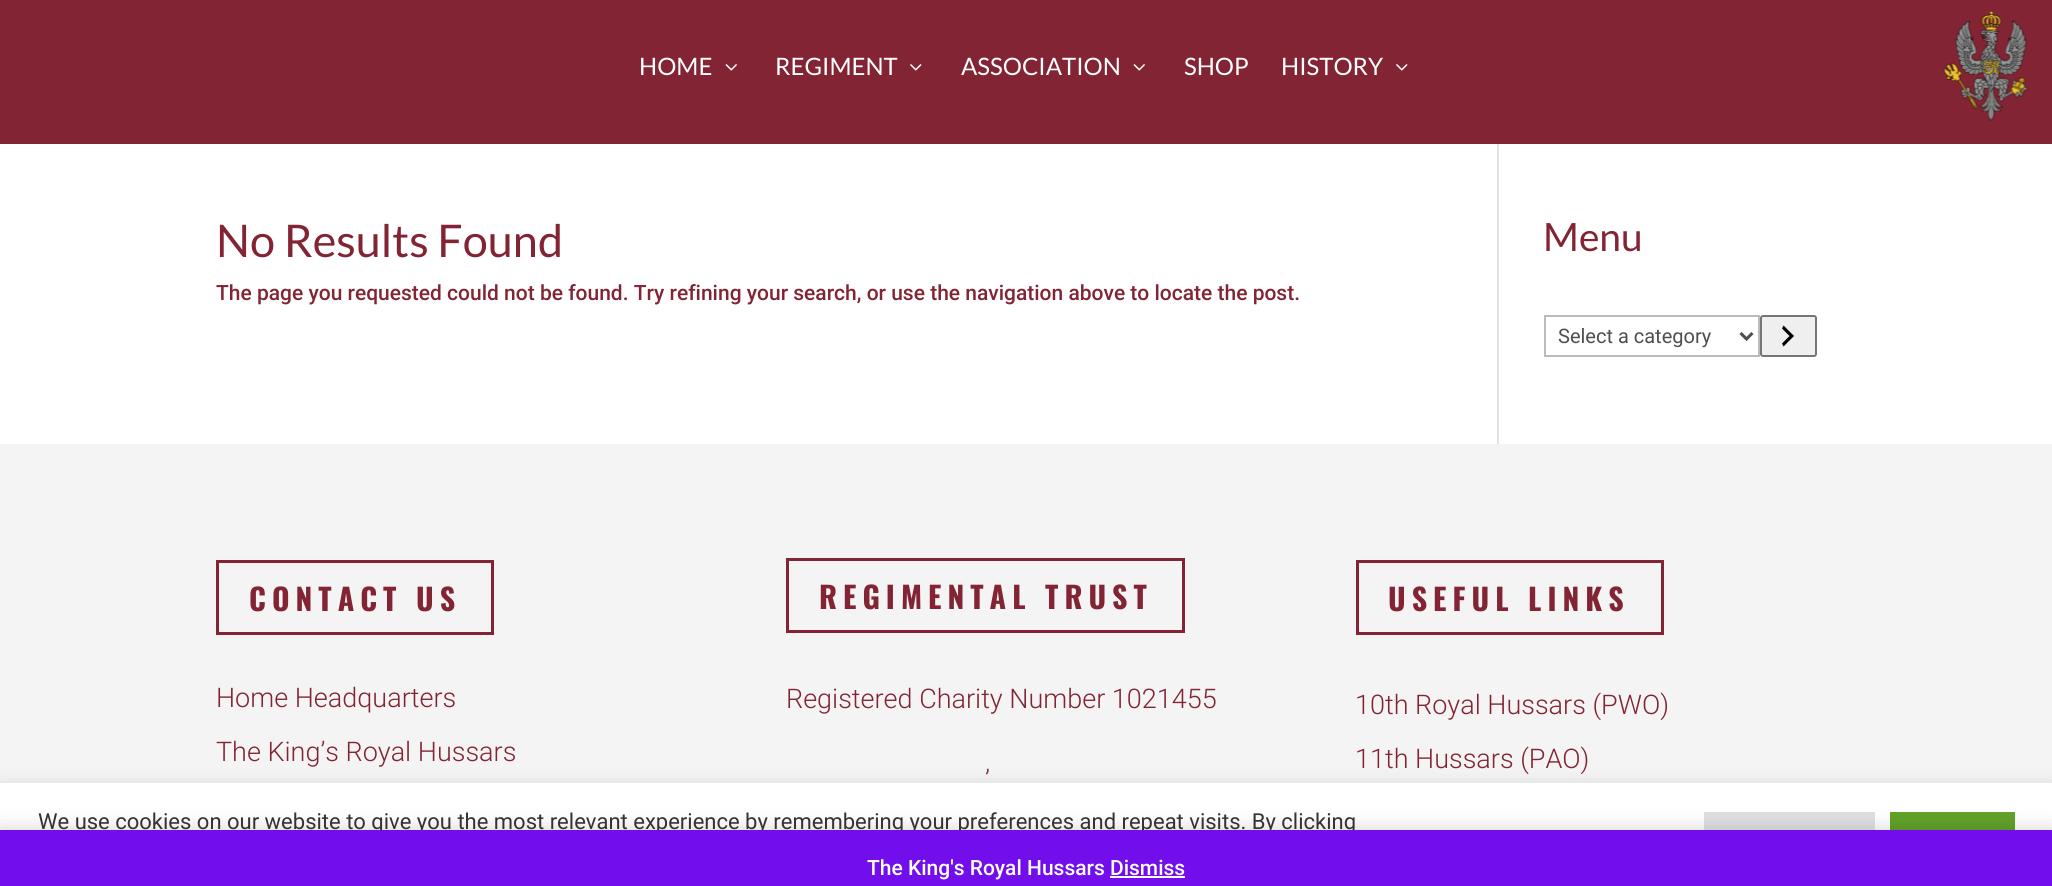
import math
import cairo


def use_color(cr, r, g, b):
  cr.set_source_rgb(r / 255, g / 255, b / 255)

def text(cr, x, y, s, family, size, color, bold=False, italic=False):
  cr.select_font_face(family, cairo.FONT_SLANT_ITALIC if italic else cairo.FONT_SLANT_NORMAL, cairo.FONT_WEIGHT_BOLD if bold else cairo.FONT_WEIGHT_NORMAL)
  cr.set_font_size(size)
  use_color(cr, *color)
  cr.move_to(x, y)
  cr.show_text(s)

def spaced_text(cr, x, y, s, letter, word):
  cr.move_to(x, y)
  for ch in s:
    cr.show_text(ch)
    cr.rel_move_to(letter + word * (ch == ' '), 0)

def box(cr, x, y, w, h, *color):
  use_color(cr, *color)
  cr.rectangle(x, y, w, h)
  cr.fill()

def round_rect(cr, x, y, w, h, r):
  cr.new_sub_path()
  for i, (u, v) in enumerate([(x + w - r, y + h - r), (x + r, y + h - r), (x + r, y + r), (x + w - r, y + r)]):
    cr.arc(u, v, r, i * math.pi / 2, (i + 1) * math.pi / 2)
  cr.close_path()

def shadow(cr, x, y, w, h, r, blur, alpha):
  cr.push_group_with_content(cairo.CONTENT_ALPHA)
  cr.set_operator(cairo.OPERATOR_SOURCE)
  for i in range(15, -16, -2):
    e = blur * i / 6
    if min(w, h) + 2 * e > 0:
      cr.set_source_rgba(0, 0, 0, alpha * math.erfc((i - 1) / 8.5) / 2)
      round_rect(cr, x - e, y - e, w + 2 * e, h + 2 * e, max(0, min(r + e + blur * .6, min(w, h) / 2 + e)))
      cr.fill()
  cr.mask(cr.pop_group())

def picture(cr, path, x, y, w, h):
  cr.save()
  cr.set_source_surface(cairo.ImageSurface.create_from_png(path), x, y)
  cr.rectangle(x, y, w, h)
  cr.fill()
  cr.restore()

def draw(cr):
  use_color(cr, 255, 255, 255)
  cr.paint()
  box(cr, 0, 0, 2052, 144, 130, 36, 51)
  picture(cr, "img_01.png", 725, 64, 12, 7)
  picture(cr, "img_02.png", 910, 64, 12, 7)
  picture(cr, "img_01.png", 1133, 64, 12, 7)
  picture(cr, "img_02.png", 1396, 64, 12, 7)
  picture(cr, "img_03.png", 1943, 10, 86, 111)
  box(cr, 1497, 144, 2, 300, 226, 226, 226)
  cr.rectangle(1545, 316, 214, 40)
  use_color(cr, 187, 187, 187)
  cr.stroke()
  cr.new_path()
  cr.move_to(1740.5, 333)
  cr.line_to(1746.5, 339)
  cr.line_to(1752.5, 333)
  use_color(cr, 78, 78, 78)
  cr.set_line_width(3)
  cr.stroke()
  use_color(cr, 239, 239, 239)
  round_rect(cr, 1761, 316, 55, 40, 2)
  cr.fill_preserve()
  use_color(cr, 118, 118, 118)
  cr.set_line_width(2)
  cr.stroke()
  use_color(cr, 0, 0, 0)
  cr.new_path()
  cr.move_to(1782, 343.5)
  cr.line_to(1789.5, 336)
  cr.line_to(1782, 328.5)
  cr.line_to(1783.5, 325.5)
  cr.line_to(1794, 336)
  cr.line_to(1783.5, 346.5)
  cr.close_path()
  cr.fill()
  box(cr, 0, 444, 2052, 339, 244, 244, 244)
  cr.rectangle(217.5, 561.5, 275, 72)
  use_color(cr, 130, 36, 51)
  cr.set_line_width(3)
  cr.stroke()
  cr.rectangle(787.5, 559.5, 396, 72)
  cr.stroke()
  cr.rectangle(1357.5, 561.5, 305, 72)
  cr.stroke()
  use_color(cr, 172, 171, 171)
  shadow(cr, 0, 782, 2052, 103, 0, 7.5, 0.3)
  box(cr, 0, 783, 2052, 47, 255, 255, 255)
  box(cr, 1704, 812, 171, 18, 222, 223, 224)
  box(cr, 1890, 812, 125, 18, 97, 162, 41)
  use_color(cr, 0, 0, 0)
  shadow(cr, 0, 831, 2052, 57, 0, 10.5, 0.2)
  text(cr, 639, 75, "HOME", "Lato", 24, (255, 255, 255))
  text(cr, 775, 75, "REGIMENT", "Lato", 24, (255, 255, 255))
  text(cr, 961, 75, "ASSOCIATION", "Lato", 24, (255, 255, 255))
  text(cr, 1184, 75, "SHOP", "Lato", 24, (255, 255, 255))
  text(cr, 1281, 75, "HISTORY", "Lato", 24, (255, 255, 255))
  text(cr, 216, 257, "No Results Found", "Lato", 45, (130, 36, 51))
  text(cr, 216, 300, "The page you requested could not be found. Try refining your search, or use the navigation above to locate the post.", "Roboto Medium", 21, (130, 36, 51))
  text(cr, 1543, 251, "Menu", "Lato", 39, (130, 36, 51))
  text(cr, 1558, 343, "Select a category", "Roboto", 20, (78, 78, 78))
  cr.select_font_face("Oswald", cairo.FONT_SLANT_NORMAL, cairo.FONT_WEIGHT_BOLD)
  cr.set_font_size(30)
  use_color(cr, 130, 36, 51)
  spaced_text(cr, 249, 611, "CONTACT US", 6, 0)
  text(cr, 216, 707, "Home Headquarters", "Roboto Light", 27, (130, 36, 51))
  text(cr, 216, 761, "The Kingʼs Royal Hussars", "Roboto Light", 27, (130, 36, 51))
  cr.select_font_face("Oswald", cairo.FONT_SLANT_NORMAL, cairo.FONT_WEIGHT_BOLD)
  cr.set_font_size(30)
  spaced_text(cr, 819, 609, "REGIMENTAL TRUST", 6, 0)
  text(cr, 786, 708, "Registered Charity Number 1021455", "Roboto Light", 27, (130, 36, 51))
  text(cr, 985, 789, "’", "Roboto Light", 27, (130, 36, 51))
  cr.select_font_face("Oswald", cairo.FONT_SLANT_NORMAL, cairo.FONT_WEIGHT_BOLD)
  cr.set_font_size(30)
  spaced_text(cr, 1388, 611, "USEFUL LINKS", 6, 0)
  text(cr, 1355, 714, "10th Royal Hussars (PWO)", "Roboto Light", 27, (130, 36, 51))
  text(cr, 1355, 768, "11th Hussars (PAO)", "Roboto Light", 27, (130, 36, 51))
  text(cr, 38, 829, "We use cookies on our website to give you the most relevant experience by remembering your preferences and repeat visits. By clicking", "Roboto", 22, (51, 51, 51))
  box(cr, 0, 830, 2052, 56, 114, 14, 236)
  text(cr, 867, 875, "The King's Royal Hussars Dismiss", "Roboto Medium", 21, (255, 255, 255))
  box(cr, 1110, 876, 75, 2, 252, 251, 254)


surface = cairo.ImageSurface(cairo.FORMAT_RGB24, 2052, 886)
cr = cairo.Context(surface)
options = cairo.FontOptions()
options.set_hint_metrics(cairo.HINT_METRICS_OFF)
options.set_hint_style(cairo.HINT_STYLE_NONE)
cr.set_font_options(options)
cr.set_miter_limit(4)
draw(cr)
surface.write_to_png("out.png")
